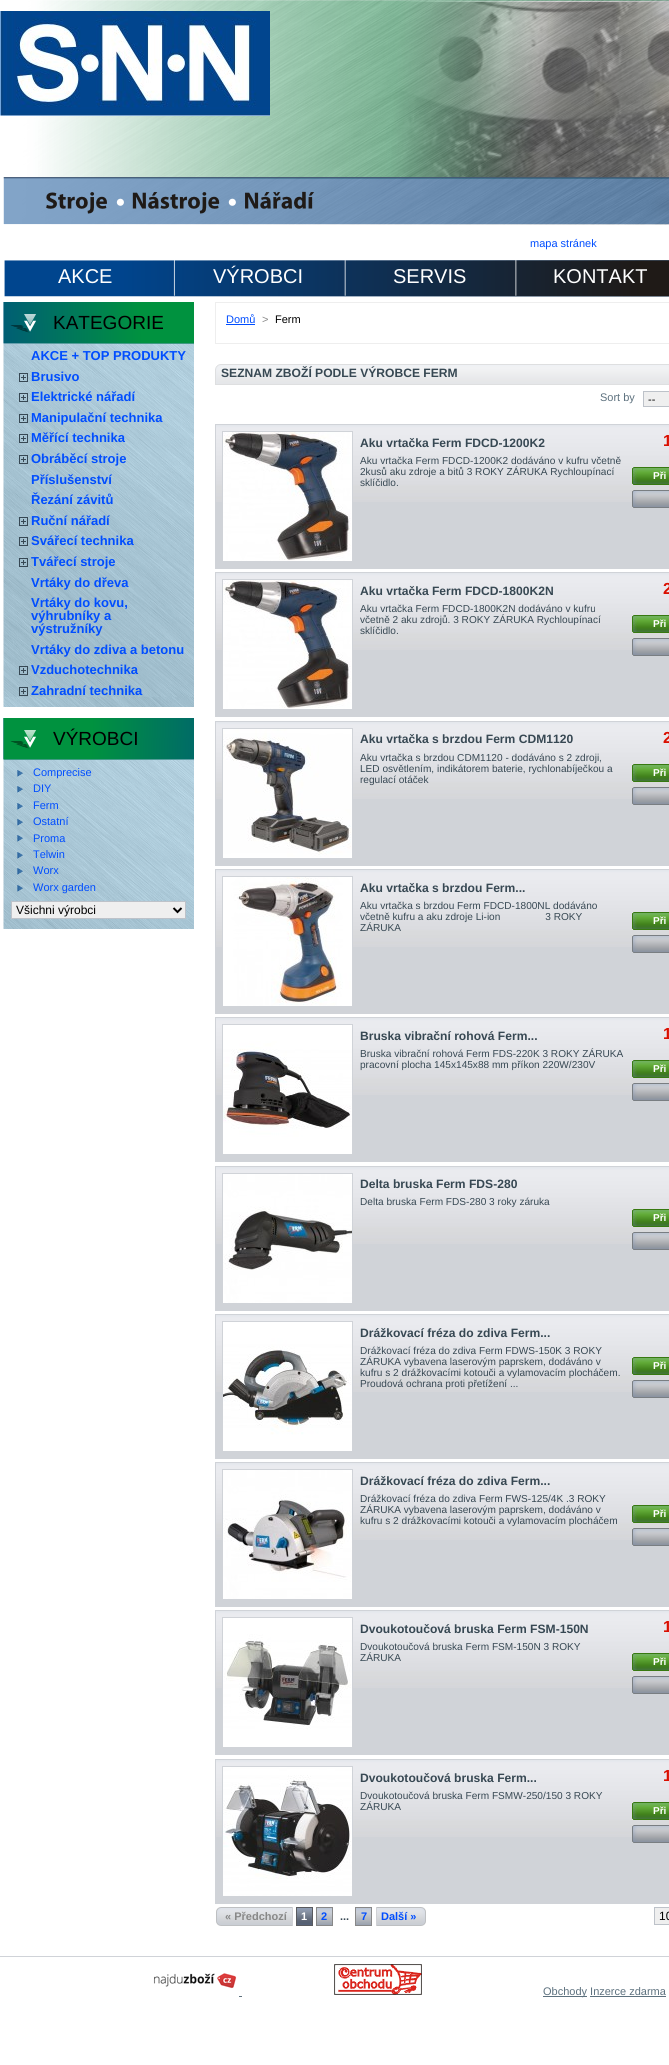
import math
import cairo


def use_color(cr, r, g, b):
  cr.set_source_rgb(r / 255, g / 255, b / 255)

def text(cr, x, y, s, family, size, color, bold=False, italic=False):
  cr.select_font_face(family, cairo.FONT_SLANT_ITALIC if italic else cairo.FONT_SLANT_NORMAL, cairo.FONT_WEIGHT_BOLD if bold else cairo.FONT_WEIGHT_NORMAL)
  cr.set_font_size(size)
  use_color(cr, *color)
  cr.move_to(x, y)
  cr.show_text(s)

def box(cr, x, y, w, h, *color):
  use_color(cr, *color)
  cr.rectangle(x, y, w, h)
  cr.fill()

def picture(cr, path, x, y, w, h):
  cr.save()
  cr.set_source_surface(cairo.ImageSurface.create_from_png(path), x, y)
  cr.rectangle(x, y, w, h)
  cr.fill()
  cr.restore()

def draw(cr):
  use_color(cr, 255, 255, 255)
  cr.paint()
  picture(cr, "img_01.png", 3, 0, 666, 225)
  picture(cr, "img_02.png", 0, 11, 270, 105)
  picture(cr, "img_03.png", 4, 260, 665, 37)
  picture(cr, "img_04.png", 3, 697, 191, 10)
  picture(cr, "img_05.png", 3, 302, 191, 42)
  picture(cr, "img_06.png", 3, 344, 191, 353)
  picture(cr, "img_07.png", 19, 373, 9, 9)
  picture(cr, "img_08.png", 19, 393, 9, 9)
  picture(cr, "img_09.png", 19, 414, 9, 9)
  picture(cr, "img_10.png", 19, 434, 9, 9)
  picture(cr, "img_11.png", 19, 455, 9, 9)
  picture(cr, "img_12.png", 19, 517, 9, 9)
  picture(cr, "img_13.png", 19, 537, 9, 9)
  picture(cr, "img_14.png", 19, 558, 9, 9)
  picture(cr, "img_15.png", 19, 666, 9, 9)
  picture(cr, "img_16.png", 19, 687, 9, 9)
  picture(cr, "img_17.png", 3, 919, 191, 10)
  picture(cr, "img_18.png", 3, 718, 191, 42)
  picture(cr, "img_19.png", 3, 760, 191, 159)
  picture(cr, "img_20.png", 17, 770, 6, 7)
  picture(cr, "img_21.png", 17, 786, 6, 7)
  picture(cr, "img_22.png", 17, 803, 6, 7)
  picture(cr, "img_23.png", 17, 819, 6, 7)
  picture(cr, "img_24.png", 17, 835, 6, 7)
  picture(cr, "img_25.png", 17, 852, 6, 7)
  picture(cr, "img_26.png", 17, 868, 6, 7)
  picture(cr, "img_27.png", 17, 885, 6, 7)
  use_color(cr, 239, 239, 239)
  cr.rectangle(11.5, 901.5, 174, 17)
  cr.fill_preserve()
  use_color(cr, 189, 194, 201)
  cr.set_line_width(1)
  cr.stroke()
  cr.new_path()
  cr.move_to(173.5, 908)
  cr.line_to(177.5, 912)
  cr.line_to(181.5, 908)
  use_color(cr, 0, 0, 0)
  cr.set_line_width(2)
  cr.stroke()
  cr.rectangle(215.5, 302.5, 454, 41)
  use_color(cr, 238, 238, 238)
  cr.set_line_width(1)
  cr.stroke()
  box(cr, 226, 324, 29, 1, 0, 77, 255)
  picture(cr, "img_28.png", 215, 364, 454, 21)
  use_color(cr, 239, 239, 239)
  cr.rectangle(643.5, 391.5, 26, 15)
  cr.fill_preserve()
  use_color(cr, 189, 194, 201)
  cr.stroke()
  box(cr, 216, 502, 453, 66, 208, 211, 216)
  picture(cr, "img_29.png", 216, 425, 453, 77)
  cr.rectangle(215.5, 424.5, 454, 144)
  cr.stroke()
  cr.rectangle(222.5, 431.5, 130, 130)
  cr.stroke()
  picture(cr, "img_30.png", 223, 432, 129, 129)
  picture(cr, "img_31.png", 632, 467, 37, 18)
  picture(cr, "img_32.png", 632, 490, 37, 18)
  box(cr, 216, 650, 453, 66, 208, 211, 216)
  picture(cr, "img_29.png", 216, 573, 453, 77)
  cr.rectangle(215.5, 572.5, 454, 144)
  cr.stroke()
  cr.rectangle(222.5, 579.5, 130, 130)
  cr.stroke()
  picture(cr, "img_30.png", 223, 580, 129, 129)
  picture(cr, "img_31.png", 632, 615, 37, 18)
  picture(cr, "img_32.png", 632, 638, 37, 18)
  box(cr, 216, 799, 453, 66, 208, 211, 216)
  picture(cr, "img_29.png", 216, 722, 453, 77)
  cr.rectangle(215.5, 721.5, 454, 144)
  cr.stroke()
  cr.rectangle(222.5, 728.5, 130, 130)
  cr.stroke()
  picture(cr, "img_33.png", 223, 729, 129, 129)
  picture(cr, "img_31.png", 632, 764, 37, 18)
  picture(cr, "img_32.png", 632, 787, 37, 18)
  box(cr, 216, 947, 453, 66, 208, 211, 216)
  picture(cr, "img_29.png", 216, 870, 453, 77)
  cr.rectangle(215.5, 869.5, 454, 144)
  cr.stroke()
  cr.rectangle(222.5, 876.5, 130, 130)
  cr.stroke()
  picture(cr, "img_34.png", 223, 877, 129, 129)
  picture(cr, "img_31.png", 632, 912, 37, 18)
  picture(cr, "img_32.png", 632, 935, 37, 18)
  box(cr, 216, 1095, 453, 66, 208, 211, 216)
  picture(cr, "img_29.png", 216, 1018, 453, 77)
  cr.rectangle(215.5, 1017.5, 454, 144)
  cr.stroke()
  cr.rectangle(222.5, 1024.5, 130, 130)
  cr.stroke()
  picture(cr, "img_35.png", 223, 1025, 129, 129)
  picture(cr, "img_31.png", 632, 1060, 37, 18)
  picture(cr, "img_32.png", 632, 1083, 37, 18)
  box(cr, 216, 1244, 453, 66, 208, 211, 216)
  picture(cr, "img_29.png", 216, 1167, 453, 77)
  cr.rectangle(215.5, 1166.5, 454, 144)
  cr.stroke()
  cr.rectangle(222.5, 1173.5, 130, 130)
  cr.stroke()
  picture(cr, "img_36.png", 223, 1174, 129, 129)
  picture(cr, "img_31.png", 632, 1209, 37, 18)
  picture(cr, "img_32.png", 632, 1232, 37, 18)
  box(cr, 216, 1392, 453, 66, 208, 211, 216)
  picture(cr, "img_29.png", 216, 1315, 453, 77)
  cr.rectangle(215.5, 1314.5, 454, 144)
  cr.stroke()
  cr.rectangle(222.5, 1321.5, 130, 130)
  cr.stroke()
  picture(cr, "img_37.png", 223, 1322, 129, 129)
  picture(cr, "img_31.png", 632, 1357, 37, 18)
  picture(cr, "img_32.png", 632, 1380, 37, 18)
  box(cr, 216, 1540, 453, 66, 208, 211, 216)
  picture(cr, "img_29.png", 216, 1463, 453, 77)
  cr.rectangle(215.5, 1462.5, 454, 144)
  cr.stroke()
  cr.rectangle(222.5, 1469.5, 130, 130)
  cr.stroke()
  picture(cr, "img_38.png", 223, 1470, 129, 129)
  picture(cr, "img_31.png", 632, 1505, 37, 18)
  picture(cr, "img_32.png", 632, 1528, 37, 18)
  box(cr, 216, 1688, 453, 66, 208, 211, 216)
  picture(cr, "img_29.png", 216, 1611, 453, 77)
  cr.rectangle(215.5, 1610.5, 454, 144)
  cr.stroke()
  cr.rectangle(222.5, 1617.5, 130, 130)
  cr.stroke()
  picture(cr, "img_39.png", 223, 1618, 129, 129)
  picture(cr, "img_31.png", 632, 1653, 37, 18)
  picture(cr, "img_32.png", 632, 1676, 37, 18)
  box(cr, 216, 1837, 453, 66, 208, 211, 216)
  picture(cr, "img_29.png", 216, 1760, 453, 77)
  cr.rectangle(215.5, 1759.5, 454, 144)
  cr.stroke()
  cr.rectangle(222.5, 1766.5, 130, 130)
  cr.stroke()
  picture(cr, "img_40.png", 223, 1767, 129, 129)
  picture(cr, "img_31.png", 632, 1802, 37, 18)
  picture(cr, "img_32.png", 632, 1825, 37, 18)
  picture(cr, "img_41.png", 216, 1907, 5, 19)
  picture(cr, "img_42.png", 221, 1907, 71, 19)
  box(cr, 292, 1907, 1, 19, 208, 209, 213)
  picture(cr, "img_43.png", 297, 1908, 15, 17)
  cr.rectangle(296.5, 1907.5, 16, 18)
  use_color(cr, 89, 90, 94)
  cr.stroke()
  picture(cr, "img_44.png", 317, 1908, 15, 17)
  cr.rectangle(316.5, 1907.5, 16, 18)
  use_color(cr, 136, 136, 136)
  cr.stroke()
  picture(cr, "img_44.png", 356, 1908, 15, 17)
  cr.rectangle(355.5, 1907.5, 16, 18)
  cr.stroke()
  picture(cr, "img_45.png", 421, 1907, 5, 19)
  picture(cr, "img_46.png", 377, 1907, 44, 19)
  box(cr, 376, 1907, 1, 19, 208, 209, 213)
  use_color(cr, 239, 239, 239)
  cr.rectangle(654.5, 1907.5, 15, 17)
  cr.fill_preserve()
  use_color(cr, 189, 194, 201)
  cr.stroke()
  box(cr, 0, 1956, 669, 1, 208, 211, 216)
  picture(cr, "img_47.png", 153, 1973, 84, 16)
  picture(cr, "img_48.png", 334, 1964, 88, 31)
  box(cr, 239, 1996, 3, 1, 93, 113, 126)
  box(cr, 543, 1996, 44, 1, 93, 113, 126)
  box(cr, 590, 1996, 76, 1, 93, 113, 126)
  text(cr, 530, 247, "mapa stránek", "Liberation Sans", 11, (0, 77, 255))
  text(cr, 58, 283, "AKCE", "Liberation Sans", 20, (255, 255, 255))
  text(cr, 213, 283, "VÝROBCI", "Liberation Sans", 20, (255, 255, 255))
  text(cr, 393, 283, "SERVIS", "Liberation Sans", 20, (255, 255, 255))
  text(cr, 553, 283, "KONTAKT", "Liberation Sans", 20, (255, 255, 255))
  text(cr, 53, 329, "KATEGORIE", "Liberation Sans", 19, (0, 0, 0))
  text(cr, 31, 360, "AKCE + TOP PRODUKTY", "Liberation Sans", 13, (0, 77, 255), bold=True)
  text(cr, 31, 381, "Brusivo", "Liberation Sans", 13, (0, 77, 255), bold=True)
  text(cr, 31, 401, "Elektrické nářadí", "Liberation Sans", 13, (0, 77, 255), bold=True)
  text(cr, 31, 422, "Manipulační technika", "Liberation Sans", 13, (0, 77, 255), bold=True)
  text(cr, 31, 442, "Měřící technika", "Liberation Sans", 13, (0, 77, 255), bold=True)
  text(cr, 31, 463, "Obráběcí stroje", "Liberation Sans", 13, (0, 77, 255), bold=True)
  text(cr, 31, 484, "Příslušenství", "Liberation Sans", 13, (0, 77, 255), bold=True)
  text(cr, 31, 504, "Řezání závitů", "Liberation Sans", 13, (0, 77, 255), bold=True)
  text(cr, 31, 525, "Ruční nářadí", "Liberation Sans", 13, (0, 77, 255), bold=True)
  text(cr, 31, 545, "Svářecí technika", "Liberation Sans", 13, (0, 77, 255), bold=True)
  text(cr, 31, 566, "Tvářecí stroje", "Liberation Sans", 13, (0, 77, 255), bold=True)
  text(cr, 31, 587, "Vrtáky do dřeva", "Liberation Sans", 13, (0, 77, 255), bold=True)
  text(cr, 31, 607, "Vrtáky do kovu,", "Liberation Sans", 13, (0, 77, 255), bold=True)
  text(cr, 31, 620, "výhrubníky a", "Liberation Sans", 13, (0, 77, 255), bold=True)
  text(cr, 31, 633, "výstružníky", "Liberation Sans", 13, (0, 77, 255), bold=True)
  text(cr, 31, 654, "Vrtáky do zdiva a betonu", "Liberation Sans", 13, (0, 77, 255), bold=True)
  text(cr, 31, 674, "Vzduchotechnika", "Liberation Sans", 13, (0, 77, 255), bold=True)
  text(cr, 31, 695, "Zahradní technika", "Liberation Sans", 13, (0, 77, 255), bold=True)
  text(cr, 53, 745, "VÝROBCI", "Liberation Sans", 19, (0, 0, 0))
  text(cr, 33, 776, "Comprecise", "Liberation Sans", 11, (0, 77, 255))
  text(cr, 33, 792, "DIY", "Liberation Sans", 11, (0, 77, 255))
  text(cr, 33, 809, "Ferm", "Liberation Sans", 11, (0, 77, 255))
  text(cr, 33, 825, "Ostatní", "Liberation Sans", 11, (0, 77, 255))
  text(cr, 33, 842, "Proma", "Liberation Sans", 11, (0, 77, 255))
  text(cr, 33, 858, "Telwin", "Liberation Sans", 11, (0, 77, 255))
  text(cr, 33, 874, "Worx", "Liberation Sans", 11, (0, 77, 255))
  text(cr, 33, 891, "Worx garden", "Liberation Sans", 11, (0, 77, 255))
  text(cr, 16, 914, "Všichni výrobci", "Liberation Sans", 12, (0, 0, 0))
  text(cr, 226, 323, "Domů", "Liberation Sans", 11, (0, 77, 255))
  text(cr, 262, 323, ">", "Liberation Sans", 11, (136, 136, 136))
  text(cr, 275, 323, "Ferm", "Liberation Sans", 11, (0, 0, 0))
  text(cr, 221, 377, "SEZNAM ZBOŽÍ PODLE VÝROBCE FERM", "Liberation Sans", 12.1, (55, 72, 83), bold=True)
  text(cr, 600, 401, "Sort by", "Liberation Sans", 11, (93, 113, 126))
  text(cr, 648, 403, "--", "Liberation Sans", 11, (0, 0, 0))
  text(cr, 360, 447, "Aku vrtačka Ferm FDCD-1200K2", "Liberation Sans", 12.1, (55, 72, 83), bold=True)
  text(cr, 360, 464, "Aku vrtačka Ferm FDCD-1200K2 dodáváno v kufru včetně", "Liberation Sans", 10.1, (55, 72, 83))
  text(cr, 360, 475, "2kusů aku zdroje a bitů 3 ROKY ZÁRUKA Rychloupínací", "Liberation Sans", 10.1, (55, 72, 83))
  text(cr, 360, 486, "sklíčidlo.", "Liberation Sans", 10.1, (55, 72, 83))
  text(cr, 663, 446, "1", "Liberation Sans", 16, (218, 15, 0), bold=True)
  text(cr, 653, 479, "Při", "Liberation Sans", 10, (255, 255, 255), bold=True)
  text(cr, 360, 595, "Aku vrtačka Ferm FDCD-1800K2N", "Liberation Sans", 12.1, (55, 72, 83), bold=True)
  text(cr, 360, 612, "Aku vrtačka Ferm FDCD-1800K2N dodáváno v kufru", "Liberation Sans", 10.1, (55, 72, 83))
  text(cr, 360, 623, "včetně 2 aku zdrojů. 3 ROKY ZÁRUKA Rychloupínací", "Liberation Sans", 10.1, (55, 72, 83))
  text(cr, 360, 634, "sklíčidlo.", "Liberation Sans", 10.1, (55, 72, 83))
  text(cr, 663, 594, "2", "Liberation Sans", 16, (218, 15, 0), bold=True)
  text(cr, 653, 627, "Při", "Liberation Sans", 10, (255, 255, 255), bold=True)
  text(cr, 360, 743, "Aku vrtačka s brzdou Ferm CDM1120", "Liberation Sans", 12.1, (55, 72, 83), bold=True)
  text(cr, 360, 761, "Aku vrtačka s brzdou CDM1120 - dodáváno s 2 zdroji,", "Liberation Sans", 10.1, (55, 72, 83))
  text(cr, 360, 772, "LED osvětlením, indikátorem baterie, rychlonabíječkou a", "Liberation Sans", 10.1, (55, 72, 83))
  text(cr, 360, 783, "regulací otáček", "Liberation Sans", 10.1, (55, 72, 83))
  text(cr, 663, 743, "2", "Liberation Sans", 16, (218, 15, 0), bold=True)
  text(cr, 653, 776, "Při", "Liberation Sans", 10, (255, 255, 255), bold=True)
  text(cr, 360, 892, "Aku vrtačka s brzdou Ferm...", "Liberation Sans", 12.1, (55, 72, 83), bold=True)
  text(cr, 360, 909, "Aku vrtačka s brzdou Ferm FDCD-1800NL dodáváno", "Liberation Sans", 10.1, (55, 72, 83))
  text(cr, 360, 920, "včetně kufru a aku zdroje Li-ion                3 ROKY", "Liberation Sans", 10.1, (55, 72, 83))
  text(cr, 360, 931, "ZÁRUKA", "Liberation Sans", 10.1, (55, 72, 83))
  text(cr, 653, 924, "Při", "Liberation Sans", 10, (255, 255, 255), bold=True)
  text(cr, 360, 1040, "Bruska vibrační rohová Ferm...", "Liberation Sans", 12.1, (55, 72, 83), bold=True)
  text(cr, 360, 1057, "Bruska vibrační rohová Ferm FDS-220K 3 ROKY ZÁRUKA", "Liberation Sans", 10.1, (55, 72, 83))
  text(cr, 360, 1068, "pracovní plocha 145x145x88 mm příkon 220W/230V", "Liberation Sans", 10.1, (55, 72, 83))
  text(cr, 663, 1039, "1", "Liberation Sans", 16, (218, 15, 0), bold=True)
  text(cr, 653, 1072, "Při", "Liberation Sans", 10, (255, 255, 255), bold=True)
  text(cr, 360, 1188, "Delta bruska Ferm FDS-280", "Liberation Sans", 12.1, (55, 72, 83), bold=True)
  text(cr, 360, 1205, "Delta bruska Ferm FDS-280 3 roky záruka", "Liberation Sans", 10.1, (55, 72, 83))
  text(cr, 653, 1221, "Při", "Liberation Sans", 10, (255, 255, 255), bold=True)
  text(cr, 360, 1337, "Drážkovací fréza do zdiva Ferm...", "Liberation Sans", 12.1, (55, 72, 83), bold=True)
  text(cr, 360, 1354, "Drážkovací fréza do zdiva Ferm FDWS-150K 3 ROKY", "Liberation Sans", 10.1, (55, 72, 83))
  text(cr, 360, 1365, "ZÁRUKA vybavena laserovým paprskem, dodáváno v", "Liberation Sans", 10.1, (55, 72, 83))
  text(cr, 360, 1376, "kufru s 2 drážkovacími kotouči a vylamovacím plocháčem.", "Liberation Sans", 10.1, (55, 72, 83))
  text(cr, 360, 1387, "Proudová ochrana proti přetížení ...", "Liberation Sans", 10.1, (55, 72, 83))
  text(cr, 653, 1369, "Při", "Liberation Sans", 10, (255, 255, 255), bold=True)
  text(cr, 360, 1485, "Drážkovací fréza do zdiva Ferm...", "Liberation Sans", 12.1, (55, 72, 83), bold=True)
  text(cr, 360, 1502, "Drážkovací fréza do zdiva Ferm FWS-125/4K .3 ROKY", "Liberation Sans", 10.1, (55, 72, 83))
  text(cr, 360, 1513, "ZÁRUKA vybavena laserovým paprskem, dodáváno v", "Liberation Sans", 10.1, (55, 72, 83))
  text(cr, 360, 1524, "kufru s 2 drážkovacími kotouči a vylamovacím plocháčem", "Liberation Sans", 10.1, (55, 72, 83))
  text(cr, 653, 1517, "Při", "Liberation Sans", 10, (255, 255, 255), bold=True)
  text(cr, 360, 1633, "Dvoukotoučová bruska Ferm FSM-150N", "Liberation Sans", 12.1, (55, 72, 83), bold=True)
  text(cr, 360, 1650, "Dvoukotoučová bruska Ferm FSM-150N 3 ROKY", "Liberation Sans", 10.1, (55, 72, 83))
  text(cr, 360, 1661, "ZÁRUKA", "Liberation Sans", 10.1, (55, 72, 83))
  text(cr, 663, 1632, "1", "Liberation Sans", 16, (218, 15, 0), bold=True)
  text(cr, 653, 1665, "Při", "Liberation Sans", 10, (255, 255, 255), bold=True)
  text(cr, 360, 1782, "Dvoukotoučová bruska Ferm...", "Liberation Sans", 12.1, (55, 72, 83), bold=True)
  text(cr, 360, 1799, "Dvoukotoučová bruska Ferm FSMW-250/150 3 ROKY", "Liberation Sans", 10.1, (55, 72, 83))
  text(cr, 360, 1810, "ZÁRUKA", "Liberation Sans", 10.1, (55, 72, 83))
  text(cr, 663, 1781, "1", "Liberation Sans", 16, (218, 15, 0), bold=True)
  text(cr, 653, 1814, "Při", "Liberation Sans", 10, (255, 255, 255), bold=True)
  text(cr, 225, 1920, "« Předchozí", "Liberation Sans", 11, (136, 136, 136), bold=True)
  text(cr, 301, 1920, "1", "Liberation Sans", 11, (255, 255, 255), bold=True)
  text(cr, 321, 1920, "2", "Liberation Sans", 11, (0, 77, 255), bold=True)
  text(cr, 340, 1920, "...", "Liberation Sans", 11, (55, 72, 83), bold=True)
  text(cr, 361, 1920, "7", "Liberation Sans", 11, (0, 77, 255), bold=True)
  text(cr, 381, 1920, "Další »", "Liberation Sans", 11, (0, 77, 255), bold=True)
  text(cr, 659, 1920, "10", "Liberation Sans", 12, (0, 0, 0))
  text(cr, 543, 1995, "Obchody Inzerce zdarma", "Liberation Sans", 11, (93, 113, 126))


surface = cairo.ImageSurface(cairo.FORMAT_RGB24, 669, 2065)
cr = cairo.Context(surface)
options = cairo.FontOptions()
options.set_hint_metrics(cairo.HINT_METRICS_OFF)
options.set_hint_style(cairo.HINT_STYLE_NONE)
cr.set_font_options(options)
cr.set_miter_limit(4)
draw(cr)
surface.write_to_png("out.png")
